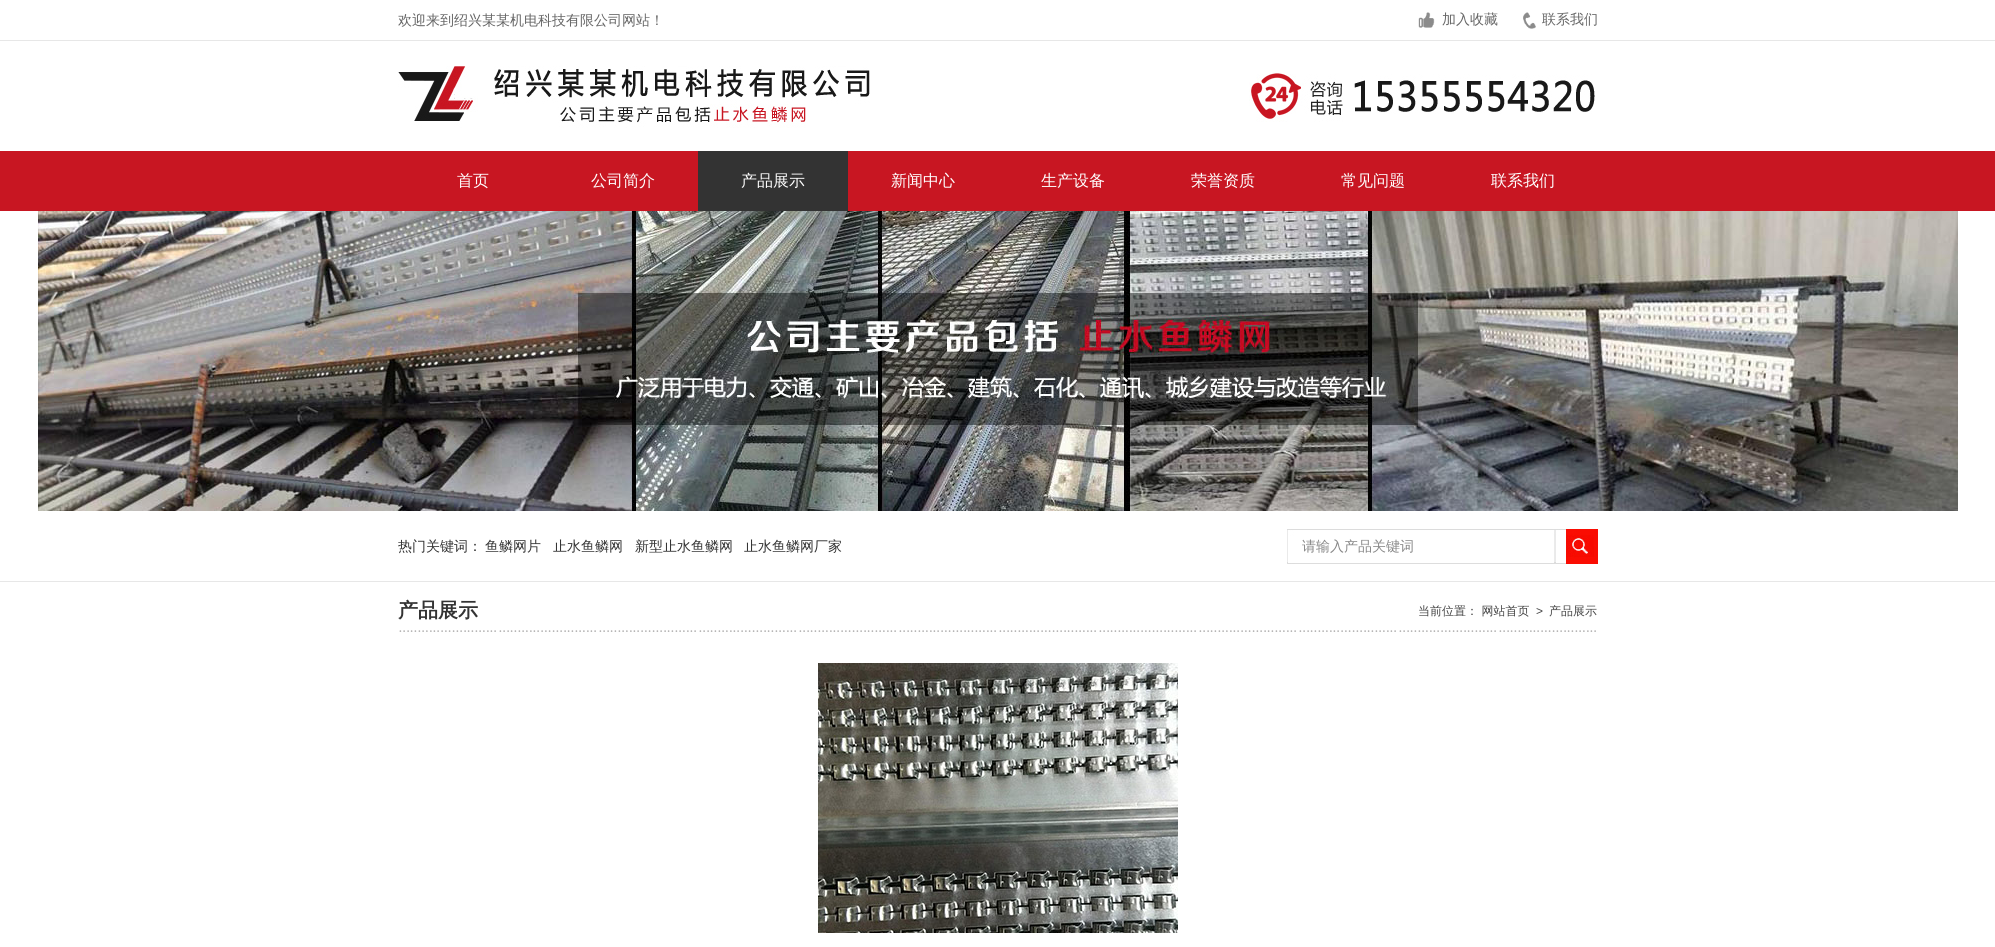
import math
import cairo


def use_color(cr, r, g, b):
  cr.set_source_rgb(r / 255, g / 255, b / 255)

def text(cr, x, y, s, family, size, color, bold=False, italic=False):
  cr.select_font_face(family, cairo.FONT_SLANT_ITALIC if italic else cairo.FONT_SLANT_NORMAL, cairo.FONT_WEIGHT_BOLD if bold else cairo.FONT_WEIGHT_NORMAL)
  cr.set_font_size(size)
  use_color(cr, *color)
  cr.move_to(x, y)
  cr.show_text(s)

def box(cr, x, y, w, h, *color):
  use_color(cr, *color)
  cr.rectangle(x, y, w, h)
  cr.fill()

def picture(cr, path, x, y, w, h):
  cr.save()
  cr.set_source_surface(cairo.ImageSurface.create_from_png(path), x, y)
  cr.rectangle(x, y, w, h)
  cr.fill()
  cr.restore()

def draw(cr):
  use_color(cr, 255, 255, 255)
  cr.paint()
  picture(cr, "img_01.png", 1418, 12, 17, 16)
  picture(cr, "img_02.png", 1523, 12, 13, 17)
  box(cr, 0, 40, 1995, 1, 231, 231, 231)
  picture(cr, "img_03.png", 398, 66, 472, 62)
  picture(cr, "img_04.png", 1249, 72, 346, 50)
  box(cr, 0, 151, 1995, 60, 200, 22, 34)
  box(cr, 698, 151, 150, 60, 51, 51, 51)
  picture(cr, "img_05.png", 38, 211, 1920, 300)
  picture(cr, "img_06.png", 1287, 529, 279, 35)
  picture(cr, "img_07.png", 1566, 529, 32, 35)
  box(cr, 0, 581, 1995, 1, 231, 231, 231)
  picture(cr, "img_08.png", 399, 630, 1197, 2)
  picture(cr, "img_09.png", 818, 663, 360, 270)
  text(cr, 398, 25, "欢迎来到绍兴某某机电科技有限公司网站！", "WenQuanYi Zen Hei Medium", 14, (102, 102, 102))
  text(cr, 1442, 24, "加入收藏", "WenQuanYi Zen Hei Medium", 14, (102, 102, 102))
  text(cr, 1542, 24, "联系我们", "WenQuanYi Zen Hei Medium", 14, (102, 102, 102))
  text(cr, 457, 186, "首页", "WenQuanYi Zen Hei Medium", 16, (255, 255, 255))
  text(cr, 591, 186, "公司简介", "WenQuanYi Zen Hei Medium", 16, (255, 255, 255))
  text(cr, 741, 186, "产品展示", "WenQuanYi Zen Hei Medium", 16, (255, 255, 255))
  text(cr, 891, 186, "新闻中心", "WenQuanYi Zen Hei Medium", 16, (255, 255, 255))
  text(cr, 1041, 186, "生产设备", "WenQuanYi Zen Hei Medium", 16, (255, 255, 255))
  text(cr, 1191, 186, "荣誉资质", "WenQuanYi Zen Hei Medium", 16, (255, 255, 255))
  text(cr, 1341, 186, "常见问题", "WenQuanYi Zen Hei Medium", 16, (255, 255, 255))
  text(cr, 1491, 186, "联系我们", "WenQuanYi Zen Hei Medium", 16, (255, 255, 255))
  text(cr, 398, 551, "热门关键词：", "WenQuanYi Zen Hei Medium", 14, (51, 51, 51))
  text(cr, 485, 551, "鱼鳞网片", "WenQuanYi Zen Hei Medium", 14, (51, 51, 51))
  text(cr, 553, 551, "止水鱼鳞网", "WenQuanYi Zen Hei Medium", 14, (51, 51, 51))
  text(cr, 635, 551, "新型止水鱼鳞网", "WenQuanYi Zen Hei Medium", 14, (51, 51, 51))
  text(cr, 744, 551, "止水鱼鳞网厂家", "WenQuanYi Zen Hei Medium", 14, (51, 51, 51))
  text(cr, 1302, 551, "请输入产品关键词", "WenQuanYi Zen Hei Medium", 14, (136, 136, 136))
  text(cr, 398, 617, "产品展示", "WenQuanYi Zen Hei", 20, (51, 51, 51), bold=True)
  text(cr, 1418, 615, "当前位置： 网站首页", "WenQuanYi Zen Hei Medium", 12, (68, 68, 68))
  text(cr, 1536, 615, ">", "Liberation Sans", 12, (68, 68, 68))
  text(cr, 1549, 615, "产品展示", "WenQuanYi Zen Hei Medium", 12, (68, 68, 68))


surface = cairo.ImageSurface(cairo.FORMAT_RGB24, 1995, 947)
cr = cairo.Context(surface)
options = cairo.FontOptions()
options.set_hint_metrics(cairo.HINT_METRICS_OFF)
options.set_hint_style(cairo.HINT_STYLE_NONE)
cr.set_font_options(options)
cr.set_miter_limit(4)
draw(cr)
surface.write_to_png("out.png")
